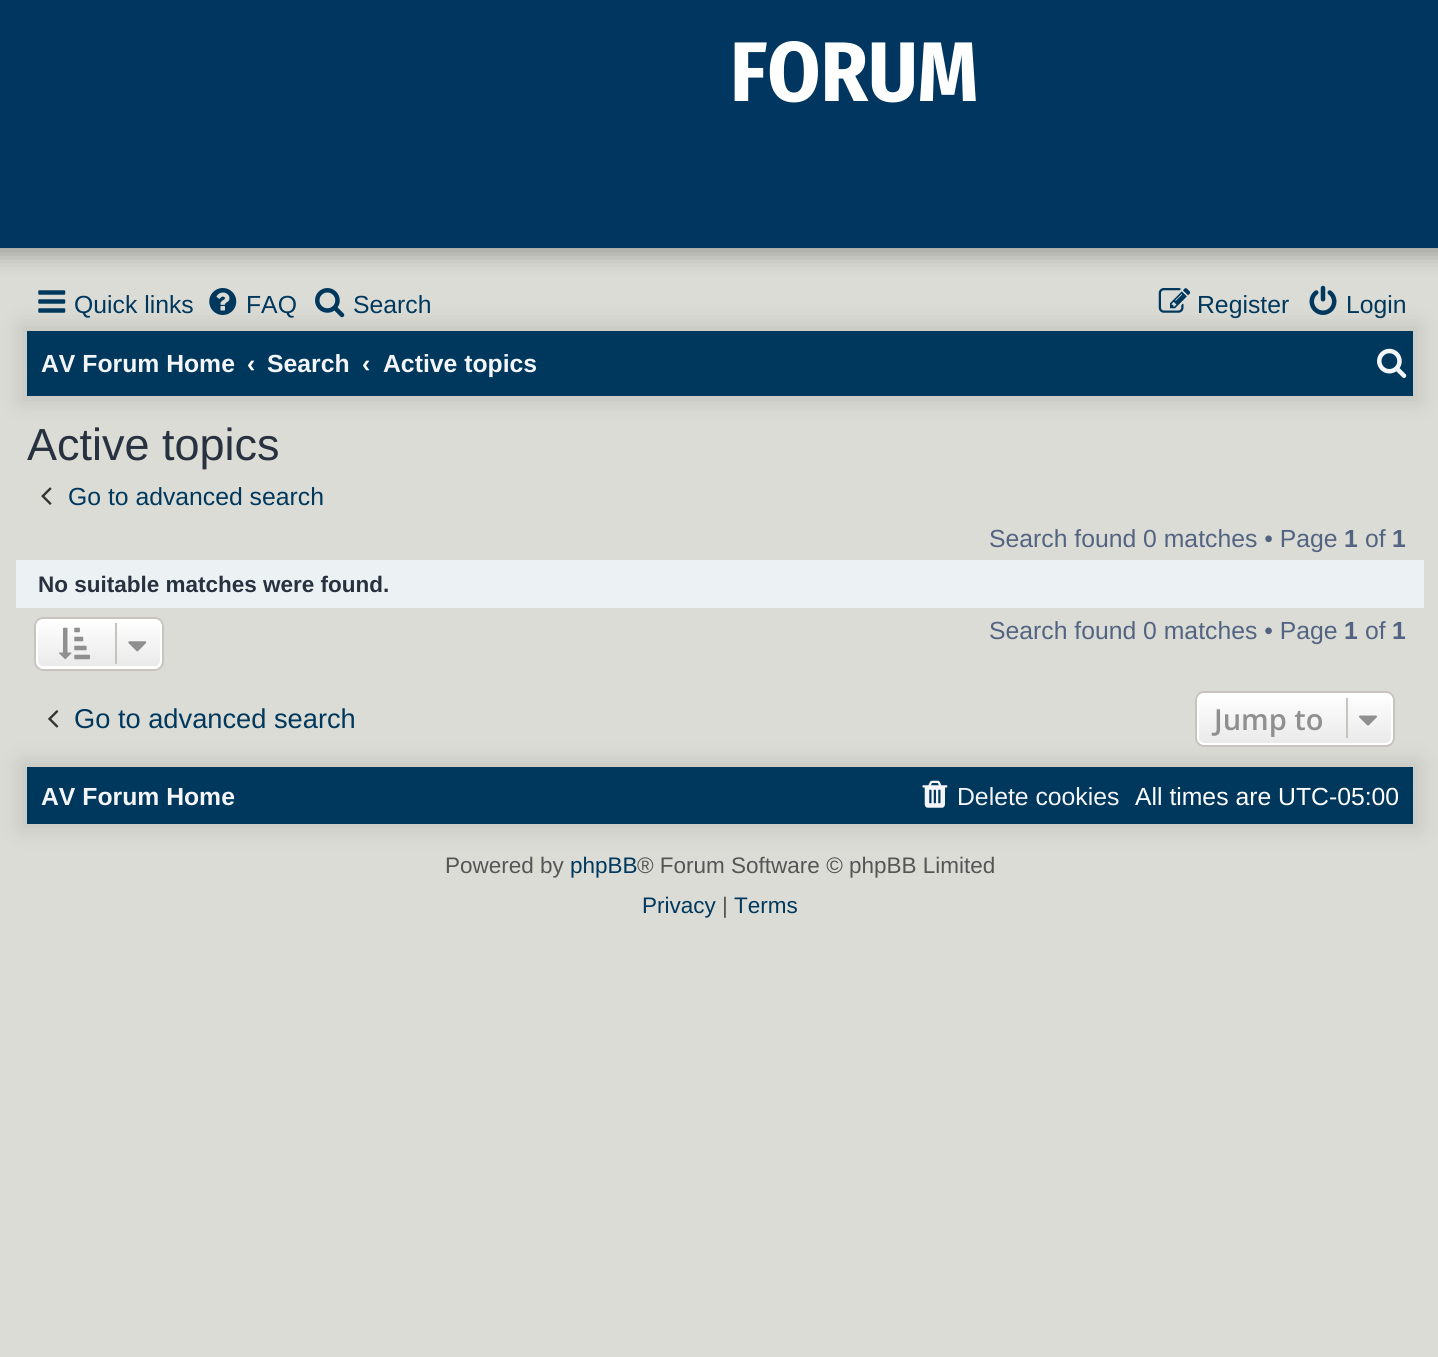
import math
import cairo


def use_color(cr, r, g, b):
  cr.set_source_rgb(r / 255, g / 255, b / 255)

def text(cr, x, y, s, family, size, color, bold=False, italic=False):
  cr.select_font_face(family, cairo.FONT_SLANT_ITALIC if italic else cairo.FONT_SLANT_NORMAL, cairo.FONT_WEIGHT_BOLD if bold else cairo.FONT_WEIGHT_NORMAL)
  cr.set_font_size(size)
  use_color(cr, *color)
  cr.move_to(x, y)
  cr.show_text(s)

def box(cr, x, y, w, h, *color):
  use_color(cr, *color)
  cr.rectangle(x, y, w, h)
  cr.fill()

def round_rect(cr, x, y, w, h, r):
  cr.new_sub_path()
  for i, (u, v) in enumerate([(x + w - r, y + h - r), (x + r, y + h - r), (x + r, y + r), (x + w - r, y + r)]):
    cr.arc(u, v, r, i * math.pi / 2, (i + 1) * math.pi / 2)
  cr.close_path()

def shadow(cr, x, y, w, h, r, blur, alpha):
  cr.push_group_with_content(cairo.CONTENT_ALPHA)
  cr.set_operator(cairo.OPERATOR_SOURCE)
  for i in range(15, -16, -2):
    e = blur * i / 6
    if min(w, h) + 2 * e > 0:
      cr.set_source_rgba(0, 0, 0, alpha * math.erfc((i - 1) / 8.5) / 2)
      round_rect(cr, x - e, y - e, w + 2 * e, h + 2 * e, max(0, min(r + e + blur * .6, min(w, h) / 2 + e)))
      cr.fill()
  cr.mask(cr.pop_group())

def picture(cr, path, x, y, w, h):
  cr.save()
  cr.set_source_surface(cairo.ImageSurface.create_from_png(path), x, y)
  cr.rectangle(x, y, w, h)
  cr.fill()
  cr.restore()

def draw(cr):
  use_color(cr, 220, 220, 214)
  cr.paint()
  use_color(cr, 0, 0, 0)
  shadow(cr, 20, 324, 1400, 79, 0, 11, 0.1)
  picture(cr, "img_05.png", 1309, 285, 28, 30)
  shadow(cr, -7, -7, 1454, 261, 0, 11, 0.3)
  box(cr, 0, 0, 1438, 248, 0, 54, 95)
  picture(cr, "img_01.png", 38, 290, 28, 23)
  picture(cr, "img_02.png", 209, 288, 28, 27)
  picture(cr, "img_03.png", 315, 288, 30, 30)
  picture(cr, "img_04.png", 1158, 288, 33, 25)
  box(cr, 27, 331, 1386, 65, 0, 56, 93)
  picture(cr, "img_06.png", 1377, 348, 30, 30)
  picture(cr, "img_07.png", 41, 487, 11, 18)
  box(cr, 16, 560, 1408, 48, 236, 241, 243)
  cr.save()
  round_rect(cr, 34, 617, 130, 54, 9)
  cr.clip()
  gradient = cairo.LinearGradient(99, 619, 99, 668)
  gradient.add_color_stop_rgba(0, 1, 1, 1, 1)
  gradient.add_color_stop_rgba(1, 0.914, 0.914, 0.914, 1)
  cr.set_source(gradient)
  cr.rectangle(34, 619, 130, 49)
  cr.fill()
  gradient = cairo.LinearGradient(99, 668, 99, 718)
  gradient.add_color_stop_rgba(0, 1, 1, 1, 1)
  gradient.add_color_stop_rgba(1, 0.914, 0.914, 0.914, 1)
  cr.set_source(gradient)
  cr.rectangle(34, 668, 130, 3)
  cr.fill()
  cr.restore()
  round_rect(cr, 37, 620, 124, 47, 6)
  use_color(cr, 255, 255, 255)
  cr.stroke()
  round_rect(cr, 35, 618, 128, 52, 8)
  use_color(cr, 199, 195, 191)
  cr.stroke()
  picture(cr, "img_08.png", 59, 627, 31, 33)
  box(cr, 115, 623, 2, 41, 199, 195, 191)
  picture(cr, "img_09.png", 128, 641, 19, 11)
  use_color(cr, 0, 0, 0)
  shadow(cr, 20, 761, 1400, 69, 0, 11, 0.1)
  picture(cr, "img_10.png", 48, 710, 11, 18)
  cr.save()
  round_rect(cr, 1195, 691, 200, 56, 9)
  cr.clip()
  gradient = cairo.LinearGradient(1295, 693, 1295, 745)
  gradient.add_color_stop_rgba(0, 1, 1, 1, 1)
  gradient.add_color_stop_rgba(1, 0.914, 0.914, 0.914, 1)
  cr.set_source(gradient)
  cr.rectangle(1195, 693, 200, 52)
  cr.fill()
  cr.restore()
  round_rect(cr, 1198, 694, 194, 50, 6)
  use_color(cr, 255, 255, 255)
  cr.stroke()
  round_rect(cr, 1196, 692, 198, 54, 8)
  use_color(cr, 199, 195, 191)
  cr.stroke()
  box(cr, 1346, 698, 2, 40, 199, 195, 191)
  picture(cr, "img_11.png", 1359, 715, 18, 11)
  box(cr, 27, 767, 1386, 57, 0, 56, 93)
  picture(cr, "img_12.png", 922, 780, 26, 28)
  text(cr, 730, 101, "FORUM", "Fira Sans Condensed", 84.5, (255, 255, 255), bold=True)
  text(cr, 74, 313, "Quick links", "Liberation Sans", 24.75, (0, 56, 93))
  text(cr, 246, 313, "FAQ", "Liberation Sans", 24.75, (0, 56, 93))
  text(cr, 353, 313, "Search", "Liberation Sans", 24.75, (0, 56, 93))
  text(cr, 1197, 313, "Register", "Liberation Sans", 24.75, (0, 56, 93))
  text(cr, 1346, 313, "Login", "Liberation Sans", 24.75, (0, 56, 93))
  text(cr, 41, 372, "AV Forum Home", "Liberation Sans", 24.75, (244, 245, 248), bold=True)
  text(cr, 247, 372, "‹", "Liberation Sans", 24.75, (255, 255, 255), bold=True)
  text(cr, 267, 372, "Search", "Liberation Sans", 24.75, (244, 245, 248), bold=True)
  text(cr, 362, 372, "‹", "Liberation Sans", 24.75, (255, 255, 255), bold=True)
  text(cr, 383, 372, "Active topics", "Liberation Sans", 24.75, (244, 245, 248), bold=True)
  text(cr, 27, 460, "Active topics", "Liberation Sans", 45, (40, 49, 63))
  text(cr, 68, 505, "Go to advanced search", "Liberation Sans", 24.75, (0, 56, 93))
  text(cr, 989, 547, "Search found 0 matches • Page", "Liberation Sans", 24.75, (83, 100, 130))
  text(cr, 1344, 547, "1", "Liberation Sans", 24.75, (83, 100, 130), bold=True)
  text(cr, 1365, 547, "of", "Liberation Sans", 24.75, (83, 100, 130))
  text(cr, 1392, 547, "1", "Liberation Sans", 24.75, (83, 100, 130), bold=True)
  text(cr, 38, 592, "No suitable matches were found.", "Liberation Sans", 22.5, (40, 49, 63), bold=True)
  text(cr, 989, 639, "Search found 0 matches • Page", "Liberation Sans", 24.75, (83, 100, 130))
  text(cr, 1344, 639, "1", "Liberation Sans", 24.75, (83, 100, 130), bold=True)
  text(cr, 1365, 639, "of", "Liberation Sans", 24.75, (83, 100, 130))
  text(cr, 1392, 639, "1", "Liberation Sans", 24.75, (83, 100, 130), bold=True)
  text(cr, 74, 728, "Go to advanced search", "Liberation Sans", 27.25, (0, 56, 93))
  text(cr, 1214, 730, "Jump to", "Open Sans SemiBold", 29, (143, 143, 143))
  text(cr, 41, 805, "AV Forum Home", "Liberation Sans", 24.75, (244, 245, 248), bold=True)
  text(cr, 957, 805, "Delete cookies", "Liberation Sans", 24.75, (244, 245, 248))
  text(cr, 1135, 805, "All times are UTC-05:00", "Liberation Sans", 24.75, (255, 255, 255))
  text(cr, 445, 873, "Powered by", "Liberation Sans", 22.5, (85, 85, 85))
  text(cr, 570, 873, "phpBB", "Liberation Sans", 22.5, (0, 56, 93))
  text(cr, 637, 873, "® Forum Software © phpBB Limited", "Liberation Sans", 22.5, (85, 85, 85))
  text(cr, 642, 913, "Privacy", "Liberation Sans", 22.5, (0, 56, 93))
  text(cr, 722, 913, "|", "Liberation Sans", 22.5, (85, 85, 85))
  text(cr, 734, 913, "Terms", "Liberation Sans", 22.5, (0, 56, 93))


surface = cairo.ImageSurface(cairo.FORMAT_RGB24, 1438, 1357)
cr = cairo.Context(surface)
options = cairo.FontOptions()
options.set_hint_metrics(cairo.HINT_METRICS_OFF)
options.set_hint_style(cairo.HINT_STYLE_NONE)
cr.set_font_options(options)
cr.set_miter_limit(4)
draw(cr)
surface.write_to_png("out.png")
